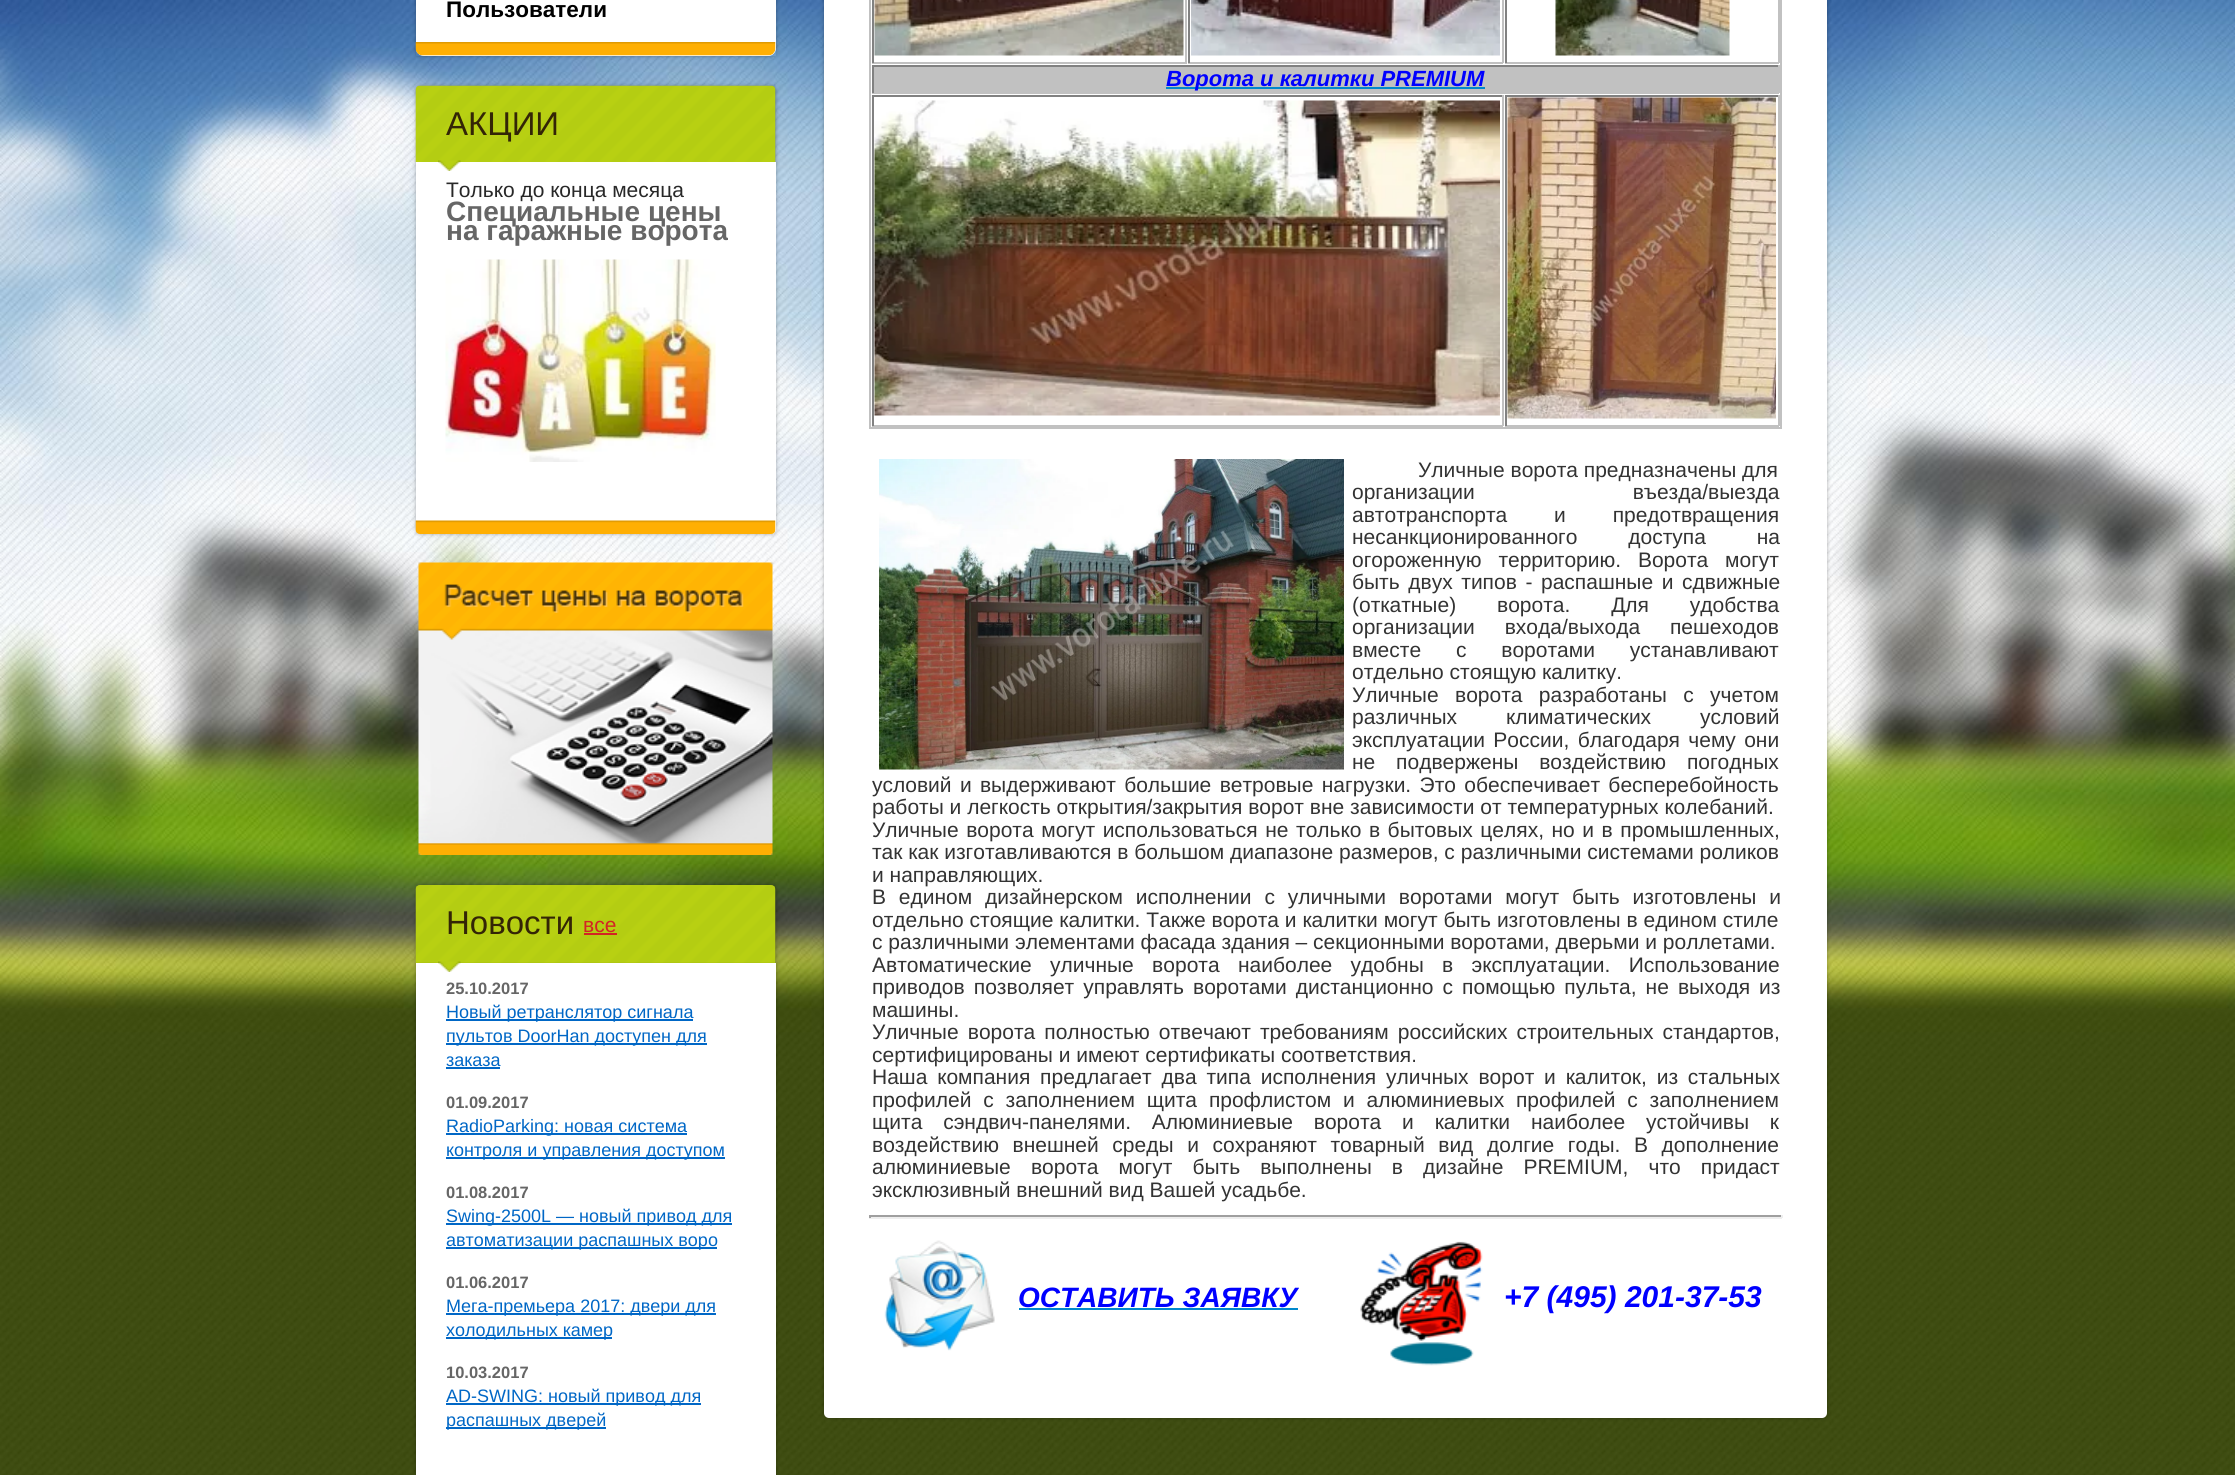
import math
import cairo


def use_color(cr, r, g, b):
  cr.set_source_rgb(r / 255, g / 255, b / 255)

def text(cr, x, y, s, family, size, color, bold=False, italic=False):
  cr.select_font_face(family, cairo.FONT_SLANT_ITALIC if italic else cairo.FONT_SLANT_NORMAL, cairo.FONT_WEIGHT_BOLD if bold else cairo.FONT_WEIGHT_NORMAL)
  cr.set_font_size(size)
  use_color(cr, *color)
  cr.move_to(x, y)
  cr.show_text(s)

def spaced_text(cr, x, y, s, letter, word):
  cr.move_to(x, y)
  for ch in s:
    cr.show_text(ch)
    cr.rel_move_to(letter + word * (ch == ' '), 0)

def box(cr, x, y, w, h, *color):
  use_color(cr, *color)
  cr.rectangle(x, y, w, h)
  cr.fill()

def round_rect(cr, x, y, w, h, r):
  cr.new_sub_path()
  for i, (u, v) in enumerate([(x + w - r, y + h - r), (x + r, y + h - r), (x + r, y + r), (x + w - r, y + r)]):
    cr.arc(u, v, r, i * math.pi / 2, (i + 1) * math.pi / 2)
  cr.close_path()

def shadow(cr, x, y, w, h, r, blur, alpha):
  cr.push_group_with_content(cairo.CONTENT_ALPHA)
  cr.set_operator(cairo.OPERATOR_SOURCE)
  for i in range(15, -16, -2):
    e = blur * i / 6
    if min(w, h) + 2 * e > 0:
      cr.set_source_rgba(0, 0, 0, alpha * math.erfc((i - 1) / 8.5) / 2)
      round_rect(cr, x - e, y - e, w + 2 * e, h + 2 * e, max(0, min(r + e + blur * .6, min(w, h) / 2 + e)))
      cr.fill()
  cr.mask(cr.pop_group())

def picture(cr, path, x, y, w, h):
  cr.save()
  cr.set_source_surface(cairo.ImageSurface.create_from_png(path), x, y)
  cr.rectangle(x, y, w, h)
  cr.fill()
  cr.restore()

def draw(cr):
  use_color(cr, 255, 255, 255)
  cr.paint()
  picture(cr, "img_01.png", 0, 0, 2235, 1475)
  cr.save()
  cr.set_fill_rule(cairo.FILL_RULE_EVEN_ODD)
  cr.new_path()
  cr.move_to(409, 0)
  cr.line_to(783, 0)
  cr.line_to(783, 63)
  cr.line_to(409, 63)
  cr.close_path()
  cr.move_to(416, -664)
  cr.line_to(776, -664)
  cr.line_to(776, 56)
  cr.line_to(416, 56)
  cr.close_path()
  cr.clip()
  use_color(cr, 0, 0, 0)
  shadow(cr, 419, -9, 354, 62, 0, 3, 1)
  cr.restore()
  use_color(cr, 255, 255, 255)
  cr.new_path()
  cr.move_to(416, -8)
  cr.line_to(776, -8)
  cr.line_to(776, 48)
  cr.curve_to(776, 52.5, 772.5, 56, 768, 56)
  cr.line_to(424, 56)
  cr.curve_to(419.5, 56, 416, 52.5, 416, 48)
  cr.close_path()
  cr.fill()
  picture(cr, "img_02.png", 415, 42, 361, 14)
  use_color(cr, 0, 0, 0)
  shadow(cr, 419, 89, 354, 442, 0, 3, 1)
  picture(cr, "img_03.png", 415, 85, 361, 77)
  use_color(cr, 255, 255, 255)
  cr.new_path()
  cr.move_to(416, 162)
  cr.line_to(776, 162)
  cr.line_to(776, 529)
  cr.curve_to(776, 532, 774, 534, 771, 534)
  cr.line_to(421, 534)
  cr.curve_to(418, 534, 416, 532, 416, 529)
  cr.close_path()
  cr.fill()
  picture(cr, "img_04.png", 438, 160, 23, 11)
  picture(cr, "img_05.png", 415, 520, 361, 14)
  picture(cr, "img_06.png", 445, 259, 271, 203)
  picture(cr, "img_07.png", 418, 562, 355, 293)
  use_color(cr, 0, 0, 0)
  shadow(cr, 419, 888, 354, 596, 0, 3, 1)
  picture(cr, "img_08.png", 415, 885, 361, 78)
  box(cr, 584, 933, 33, 2, 211, 36, 36)
  box(cr, 416, 963, 360, 512, 255, 255, 255)
  picture(cr, "img_09.png", 438, 961, 23, 11)
  box(cr, 446, 1019, 247, 2, 0, 103, 198)
  box(cr, 446, 1043, 261, 2, 0, 103, 198)
  box(cr, 446, 1067, 54, 2, 0, 103, 198)
  box(cr, 446, 1133, 241, 2, 0, 103, 198)
  box(cr, 446, 1157, 279, 2, 0, 103, 198)
  box(cr, 446, 1223, 286, 2, 0, 103, 198)
  box(cr, 446, 1247, 271, 2, 0, 103, 198)
  box(cr, 446, 1313, 270, 2, 0, 103, 198)
  box(cr, 446, 1337, 166, 2, 0, 103, 198)
  box(cr, 446, 1403, 255, 2, 0, 103, 198)
  box(cr, 446, 1427, 160, 2, 0, 103, 198)
  use_color(cr, 0, 0, 0)
  shadow(cr, 827, -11, 997, 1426, 1.5, 3, 1)
  use_color(cr, 255, 255, 255)
  round_rect(cr, 824, -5, 1003, 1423, 5)
  cr.fill()
  cr.rectangle(870, -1, 911, 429)
  use_color(cr, 193, 193, 193)
  cr.stroke()
  box(cr, 1185, 0, 2, 63, 193, 193, 193)
  box(cr, 872, 62, 315, 2, 193, 193, 193)
  box(cr, 872, 0, 2, 63, 129, 129, 129)
  picture(cr, "img_10.png", 874, 0, 310, 56)
  box(cr, 1502, 0, 2, 63, 193, 193, 193)
  box(cr, 1188, 62, 315, 2, 193, 193, 193)
  box(cr, 1188, 0, 2, 63, 129, 129, 129)
  picture(cr, "img_11.png", 1191, 0, 309, 56)
  box(cr, 1778, 0, 2, 63, 193, 193, 193)
  box(cr, 1505, 62, 274, 2, 193, 193, 193)
  box(cr, 1505, 0, 2, 63, 129, 129, 129)
  picture(cr, "img_12.png", 1555, 0, 175, 56)
  box(cr, 874, 67, 904, 25, 193, 193, 193)
  box(cr, 872, 65, 907, 2, 129, 129, 129)
  box(cr, 1778, 65, 2, 28, 193, 193, 193)
  box(cr, 872, 92, 907, 2, 193, 193, 193)
  box(cr, 872, 65, 2, 28, 129, 129, 129)
  box(cr, 1166, 87, 319, 2, 0, 136, 204)
  box(cr, 872, 95, 631, 2, 129, 129, 129)
  box(cr, 1502, 95, 2, 331, 193, 193, 193)
  box(cr, 872, 425, 631, 2, 193, 193, 193)
  box(cr, 872, 95, 2, 331, 129, 129, 129)
  picture(cr, "img_13.png", 874, 100, 626, 316)
  box(cr, 1505, 95, 274, 2, 129, 129, 129)
  box(cr, 1778, 95, 2, 331, 193, 193, 193)
  box(cr, 1505, 425, 274, 2, 193, 193, 193)
  box(cr, 1505, 95, 2, 331, 129, 129, 129)
  picture(cr, "img_14.png", 1507, 97, 269, 322)
  picture(cr, "img_15.png", 879, 459, 465, 311)
  box(cr, 869, 1215, 913, 2, 159, 159, 159)
  box(cr, 1781, 1215, 2, 3, 238, 238, 238)
  box(cr, 869, 1217, 913, 2, 238, 238, 238)
  box(cr, 869, 1215, 2, 3, 159, 159, 159)
  picture(cr, "img_16.png", 884, 1240, 111, 111)
  box(cr, 1019, 1308, 279, 2, 0, 136, 204)
  picture(cr, "img_17.png", 1360, 1241, 123, 125)
  text(cr, 446, 17, "Пользователи", "Liberation Sans", 22.5, (0, 0, 0), bold=True)
  text(cr, 446, 135, "АКЦИИ", "Liberation Sans", 33, (51, 37, 6))
  text(cr, 446, 197, "Только до конца месяца", "Liberation Sans", 21, (40, 40, 40))
  text(cr, 446, 221, "Специальные цены", "Liberation Sans", 28, (102, 102, 102), bold=True)
  text(cr, 446, 240, "на гаражные ворота", "Liberation Sans", 28, (102, 102, 102), bold=True)
  text(cr, 446, 934, "Новости", "Liberation Sans", 33, (51, 37, 6))
  text(cr, 583, 932, "все", "Liberation Sans", 21, (211, 36, 36))
  text(cr, 446, 994, "25.10.2017", "Liberation Sans", 16.5, (102, 102, 102), bold=True)
  text(cr, 446, 1018, "Новый ретранслятор сигнала", "Liberation Sans", 18, (0, 103, 198))
  text(cr, 446, 1042, "пультов DoorHan доступен для", "Liberation Sans", 18, (0, 103, 198))
  text(cr, 446, 1066, "заказа", "Liberation Sans", 18, (0, 103, 198))
  text(cr, 446, 1108, "01.09.2017", "Liberation Sans", 16.5, (102, 102, 102), bold=True)
  text(cr, 446, 1132, "RadioParking: новая система", "Liberation Sans", 18, (0, 103, 198))
  text(cr, 446, 1156, "контроля и управления доступом", "Liberation Sans", 18, (0, 103, 198))
  text(cr, 446, 1198, "01.08.2017", "Liberation Sans", 16.5, (102, 102, 102), bold=True)
  text(cr, 446, 1222, "Swing-2500L — новый привод для", "Liberation Sans", 18, (0, 103, 198))
  text(cr, 446, 1246, "автоматизации распашных воро", "Liberation Sans", 18, (0, 103, 198))
  text(cr, 446, 1288, "01.06.2017", "Liberation Sans", 16.5, (102, 102, 102), bold=True)
  text(cr, 446, 1312, "Мега-премьера 2017: двери для", "Liberation Sans", 18, (0, 103, 198))
  text(cr, 446, 1336, "холодильных камер", "Liberation Sans", 18, (0, 103, 198))
  text(cr, 446, 1378, "10.03.2017", "Liberation Sans", 16.5, (102, 102, 102), bold=True)
  text(cr, 446, 1402, "AD-SWING: новый привод для", "Liberation Sans", 18, (0, 103, 198))
  text(cr, 446, 1426, "распашных дверей", "Liberation Sans", 18, (0, 103, 198))
  text(cr, 1166, 86, "Ворота и калитки PREMIUM", "Liberation Sans", 22, (0, 0, 255), bold=True, italic=True)
  text(cr, 1418, 477, "Уличные ворота предназначены для", "Liberation Sans", 21, (51, 51, 51))
  spaced_text(cr, 1352, 499, "организации въезда/выезда", 0, 152)
  spaced_text(cr, 1352, 522, "автотранспорта и предотвращения", 0, 41)
  spaced_text(cr, 1352, 544, "несанкционированного доступа на", 0, 45)
  spaced_text(cr, 1352, 567, "огороженную территорию. Ворота могут", 0, 11)
  spaced_text(cr, 1352, 589, "быть двух типов - распашные и сдвижные", 0, 2.75)
  spaced_text(cr, 1352, 612, "(откатные) ворота. Для удобства", 0, 35)
  spaced_text(cr, 1352, 634, "организации входа/выхода пешеходов", 0, 24)
  spaced_text(cr, 1352, 657, "вместе с воротами устанавливают", 0, 29)
  text(cr, 1352, 679, "отдельно стоящую калитку.", "Liberation Sans", 21, (51, 51, 51))
  spaced_text(cr, 1352, 702, "Уличные ворота разработаны с учетом", 0, 10.5)
  spaced_text(cr, 1352, 724, "различных климатических условий", 0, 43)
  spaced_text(cr, 1352, 747, "эксплуатации России, благодаря чему они", 0, 2.5)
  spaced_text(cr, 1352, 769, "не подвержены воздействию погодных", 0, 15)
  spaced_text(cr, 872, 792, "условий и выдерживают большие ветровые нагрузки. Это обеспечивает бесперебойность", 0, 2.5)
  text(cr, 872, 814, "работы и легкость открытия/закрытия ворот вне зависимости от температурных колебаний.", "Liberation Sans", 21, (51, 51, 51))
  spaced_text(cr, 872, 837, "Уличные ворота могут использоваться не только в бытовых целях, но и в промышленных,", 0, 1.7)
  text(cr, 872, 859, "так как изготавливаются в большом диапазоне размеров, с различными системами роликов", "Liberation Sans", 21, (51, 51, 51))
  text(cr, 872, 882, "и направляющих.", "Liberation Sans", 21, (51, 51, 51))
  spaced_text(cr, 872, 904, "В едином дизайнерском исполнении с уличными воротами могут быть изготовлены и", 0, 7)
  text(cr, 872, 927, "отдельно стоящие калитки. Также ворота и калитки могут быть изготовлены в едином стиле", "Liberation Sans", 21, (51, 51, 51))
  text(cr, 872, 949, "с различными элементами фасада здания – секционными воротами, дверьми и роллетами.", "Liberation Sans", 21, (51, 51, 51))
  spaced_text(cr, 872, 972, "Автоматические уличные ворота наиболее удобны в эксплуатации. Использование", 0, 12.5)
  spaced_text(cr, 872, 994, "приводов позволяет управлять воротами дистанционно с помощью пульта, не выходя из", 0, 3.25)
  text(cr, 872, 1017, "машины.", "Liberation Sans", 21, (51, 51, 51))
  spaced_text(cr, 872, 1039, "Уличные ворота полностью отвечают требованиям российских строительных стандартов,", 0, 3.25)
  text(cr, 872, 1062, "сертифицированы и имеют сертификаты соответствия.", "Liberation Sans", 21, (51, 51, 51))
  spaced_text(cr, 872, 1084, "Наша компания предлагает два типа исполнения уличных ворот и калиток, из стальных", 0, 4)
  spaced_text(cr, 872, 1107, "профилей с заполнением щита профлистом и алюминиевых профилей с заполнением", 0, 6)
  spaced_text(cr, 872, 1129, "щита сэндвич-панелями. Алюминиевые ворота и калитки наиболее устойчивы к", 0, 15)
  spaced_text(cr, 872, 1152, "воздействию внешней среды и сохраняют товарный вид долгие годы. В дополнение", 0, 7.75)
  spaced_text(cr, 872, 1174, "алюминиевые ворота могут быть выполнены в дизайне PREMIUM, что придаст", 0, 14.25)
  text(cr, 872, 1197, "эксклюзивный внешний вид Вашей усадьбе.", "Liberation Sans", 21, (51, 51, 51))
  text(cr, 1018, 1307, "ОСТАВИТЬ ЗАЯВКУ", "Liberation Sans", 28, (0, 0, 255), bold=True, italic=True)
  text(cr, 1504, 1307, "+7 (495) 201-37-53", "Liberation Sans", 30, (0, 0, 255), bold=True, italic=True)


surface = cairo.ImageSurface(cairo.FORMAT_RGB24, 2235, 1475)
cr = cairo.Context(surface)
options = cairo.FontOptions()
options.set_hint_metrics(cairo.HINT_METRICS_OFF)
options.set_hint_style(cairo.HINT_STYLE_NONE)
cr.set_font_options(options)
cr.set_miter_limit(4)
draw(cr)
surface.write_to_png("out.png")
